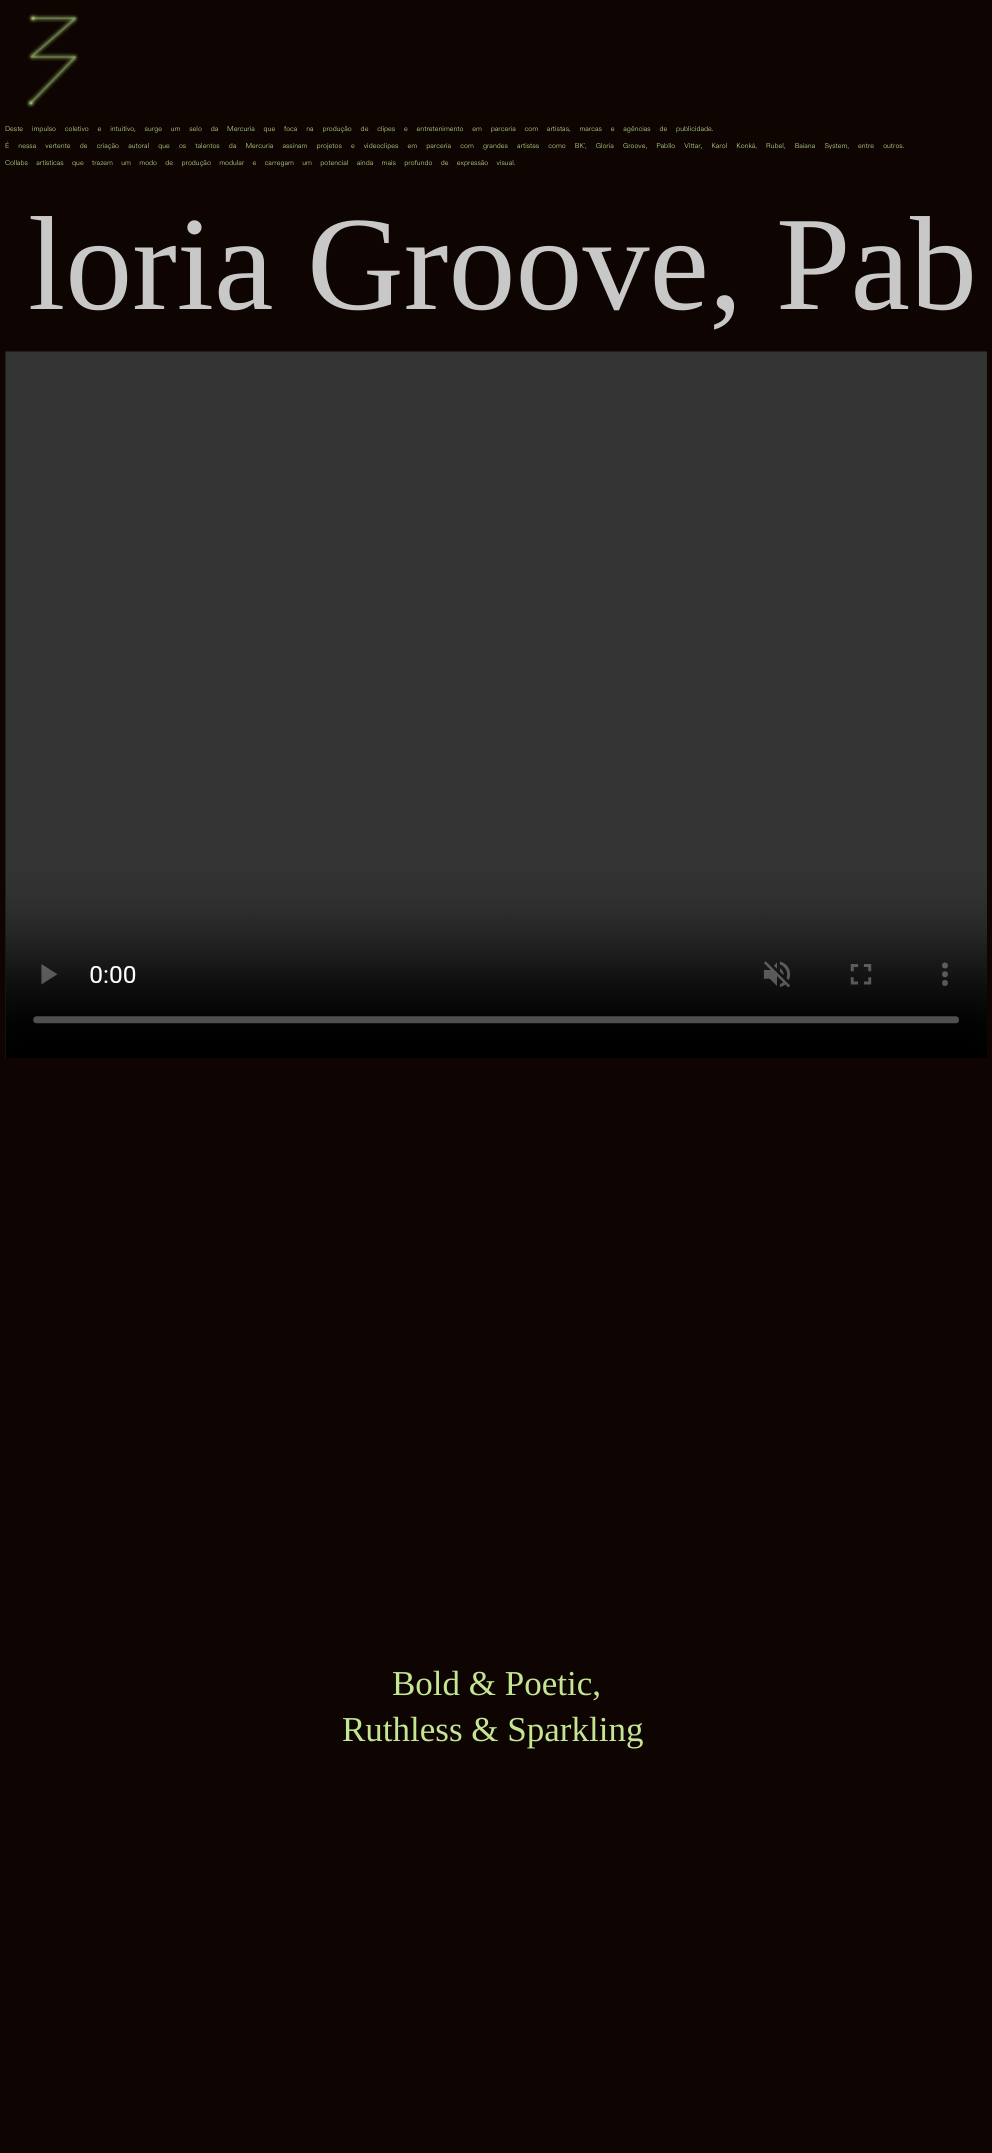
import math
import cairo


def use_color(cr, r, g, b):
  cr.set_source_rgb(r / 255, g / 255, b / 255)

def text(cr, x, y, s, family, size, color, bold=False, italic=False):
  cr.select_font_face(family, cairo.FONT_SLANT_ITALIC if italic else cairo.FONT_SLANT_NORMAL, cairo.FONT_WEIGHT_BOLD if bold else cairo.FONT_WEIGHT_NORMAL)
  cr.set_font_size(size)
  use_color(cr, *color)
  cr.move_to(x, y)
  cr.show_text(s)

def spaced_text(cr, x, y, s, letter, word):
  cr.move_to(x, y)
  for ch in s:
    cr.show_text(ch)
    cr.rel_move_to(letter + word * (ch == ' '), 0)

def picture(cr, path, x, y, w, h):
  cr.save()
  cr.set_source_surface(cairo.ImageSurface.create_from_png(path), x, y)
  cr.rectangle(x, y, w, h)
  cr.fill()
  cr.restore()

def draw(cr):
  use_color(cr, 14, 4, 1)
  cr.paint()
  picture(cr, "img_01.png", 26, 13, 53, 95)
  picture(cr, "img_02.png", 5, 351, 982, 707)
  cr.select_font_face("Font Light")
  cr.set_font_size(6.99)
  use_color(cr, 196, 230, 147)
  spaced_text(cr, 5, 131, "Deste impulso coletivo e intuitivo, surge um selo da Mercuria que foca na produção de clipes e entretenimento em parceria com artistas, marcas e agências de publicidade.", 0, 7.1)
  spaced_text(cr, 5, 148, "É nessa vertente de criação autoral que os talentos da Mercuria assinam projetos e videoclipes em parceria com grandes artistas como BK', Gloria Groove, Pabllo Vittar, Karol Konká, Rubel, Baiana System, entre outros.", 0, 7.4)
  spaced_text(cr, 5, 165, "Collabs artísticas que trazem um modo de produção modular e carregam um potencial ainda mais profundo de expressão visual.", 0, 6.6)
  text(cr, 28, 309, "loria Groove, Pab", "Liberation Serif", 134, (200, 200, 200))
  text(cr, 392, 1695, "Bold & Poetic,", "Liberation Serif", 35, (196, 230, 147))
  text(cr, 342, 1741, "Ruthless & Sparkling", "Liberation Serif", 35, (196, 230, 147))


surface = cairo.ImageSurface(cairo.FORMAT_RGB24, 992, 2153)
cr = cairo.Context(surface)
options = cairo.FontOptions()
options.set_hint_metrics(cairo.HINT_METRICS_OFF)
options.set_hint_style(cairo.HINT_STYLE_NONE)
cr.set_font_options(options)
cr.set_miter_limit(4)
draw(cr)
surface.write_to_png("out.png")
